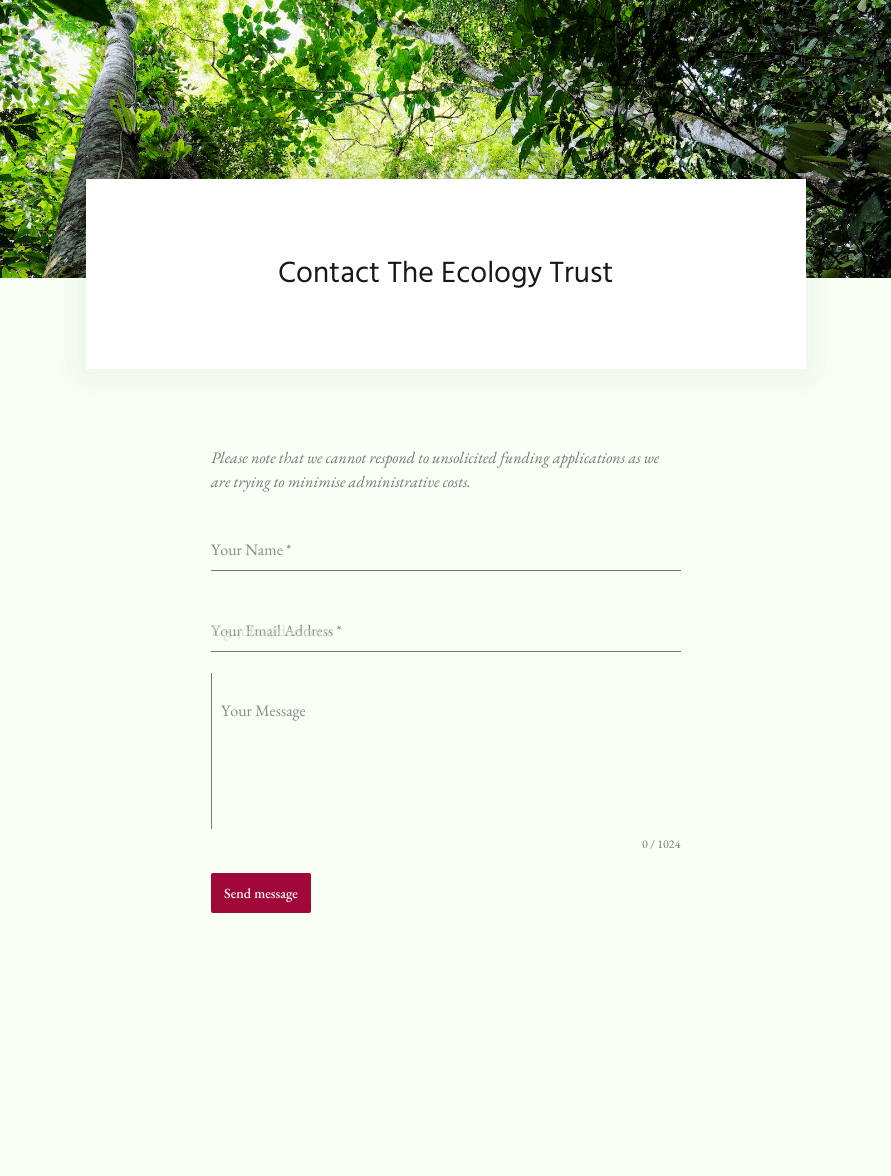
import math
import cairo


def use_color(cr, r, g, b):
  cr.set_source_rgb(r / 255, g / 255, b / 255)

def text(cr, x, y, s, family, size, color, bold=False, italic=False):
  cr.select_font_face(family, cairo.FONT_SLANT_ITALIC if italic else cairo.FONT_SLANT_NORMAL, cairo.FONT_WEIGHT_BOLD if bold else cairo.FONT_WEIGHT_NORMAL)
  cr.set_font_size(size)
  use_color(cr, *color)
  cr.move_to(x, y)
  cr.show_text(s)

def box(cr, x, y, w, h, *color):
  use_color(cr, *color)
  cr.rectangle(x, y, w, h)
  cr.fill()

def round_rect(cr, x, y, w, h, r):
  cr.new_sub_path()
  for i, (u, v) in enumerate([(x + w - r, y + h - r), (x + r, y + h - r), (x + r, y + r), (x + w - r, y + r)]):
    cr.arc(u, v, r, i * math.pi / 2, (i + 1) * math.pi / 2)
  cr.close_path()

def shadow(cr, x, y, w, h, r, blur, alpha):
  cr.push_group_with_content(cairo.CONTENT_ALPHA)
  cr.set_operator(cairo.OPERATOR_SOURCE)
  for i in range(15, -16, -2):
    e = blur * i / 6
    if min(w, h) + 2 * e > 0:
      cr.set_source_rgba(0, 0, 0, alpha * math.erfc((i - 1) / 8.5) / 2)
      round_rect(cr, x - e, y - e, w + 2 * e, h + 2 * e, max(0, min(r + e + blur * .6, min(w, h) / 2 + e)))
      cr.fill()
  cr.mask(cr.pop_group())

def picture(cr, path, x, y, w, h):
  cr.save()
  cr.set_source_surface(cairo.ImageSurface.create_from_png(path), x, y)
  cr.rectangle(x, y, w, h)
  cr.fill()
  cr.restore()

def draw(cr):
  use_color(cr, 248, 255, 244)
  cr.paint()
  picture(cr, "img_01.png", 0, 0, 891, 278)
  use_color(cr, 35, 31, 32)
  shadow(cr, 82, 175, 728, 198, 0, 20, 0.07)
  box(cr, 86, 179, 720, 190, 255, 255, 255)
  box(cr, 211, 570, 470, 1, 119, 119, 113)
  box(cr, 211, 651, 470, 1, 119, 119, 113)
  box(cr, 211, 673, 1, 156, 119, 119, 113)
  use_color(cr, 161, 8, 58)
  round_rect(cr, 211, 873, 100, 40, 2)
  cr.fill()
  text(cr, 278, 282, "Contact The Ecology Trust", "Hind", 30, (26, 23, 28))
  text(cr, 211, 463, "Please note that we cannot respond to unsolicited funding applications as we", "EB Garamond", 16, (119, 119, 119), italic=True)
  text(cr, 211, 487, "are trying to minimise administrative costs.", "EB Garamond", 16, (119, 119, 119), italic=True)
  text(cr, 211, 555, "Your Name *", "EB Garamond", 16, (136, 136, 136))
  text(cr, 211, 636, "Your Email Address *", "EB Garamond", 16, (136, 136, 136))
  text(cr, 211, 636, "E.g. john@doe.com", "EB Garamond", 16, (219, 225, 216))
  text(cr, 221, 716, "Your Message", "EB Garamond", 16, (136, 136, 136))
  text(cr, 642, 848, "0 / 1024", "EB Garamond", 12, (119, 119, 113))
  text(cr, 224, 898, "Send message", "EB Garamond Medium", 14, (255, 255, 255))


surface = cairo.ImageSurface(cairo.FORMAT_RGB24, 891, 1176)
cr = cairo.Context(surface)
options = cairo.FontOptions()
options.set_hint_metrics(cairo.HINT_METRICS_OFF)
options.set_hint_style(cairo.HINT_STYLE_NONE)
cr.set_font_options(options)
cr.set_miter_limit(4)
draw(cr)
surface.write_to_png("out.png")
